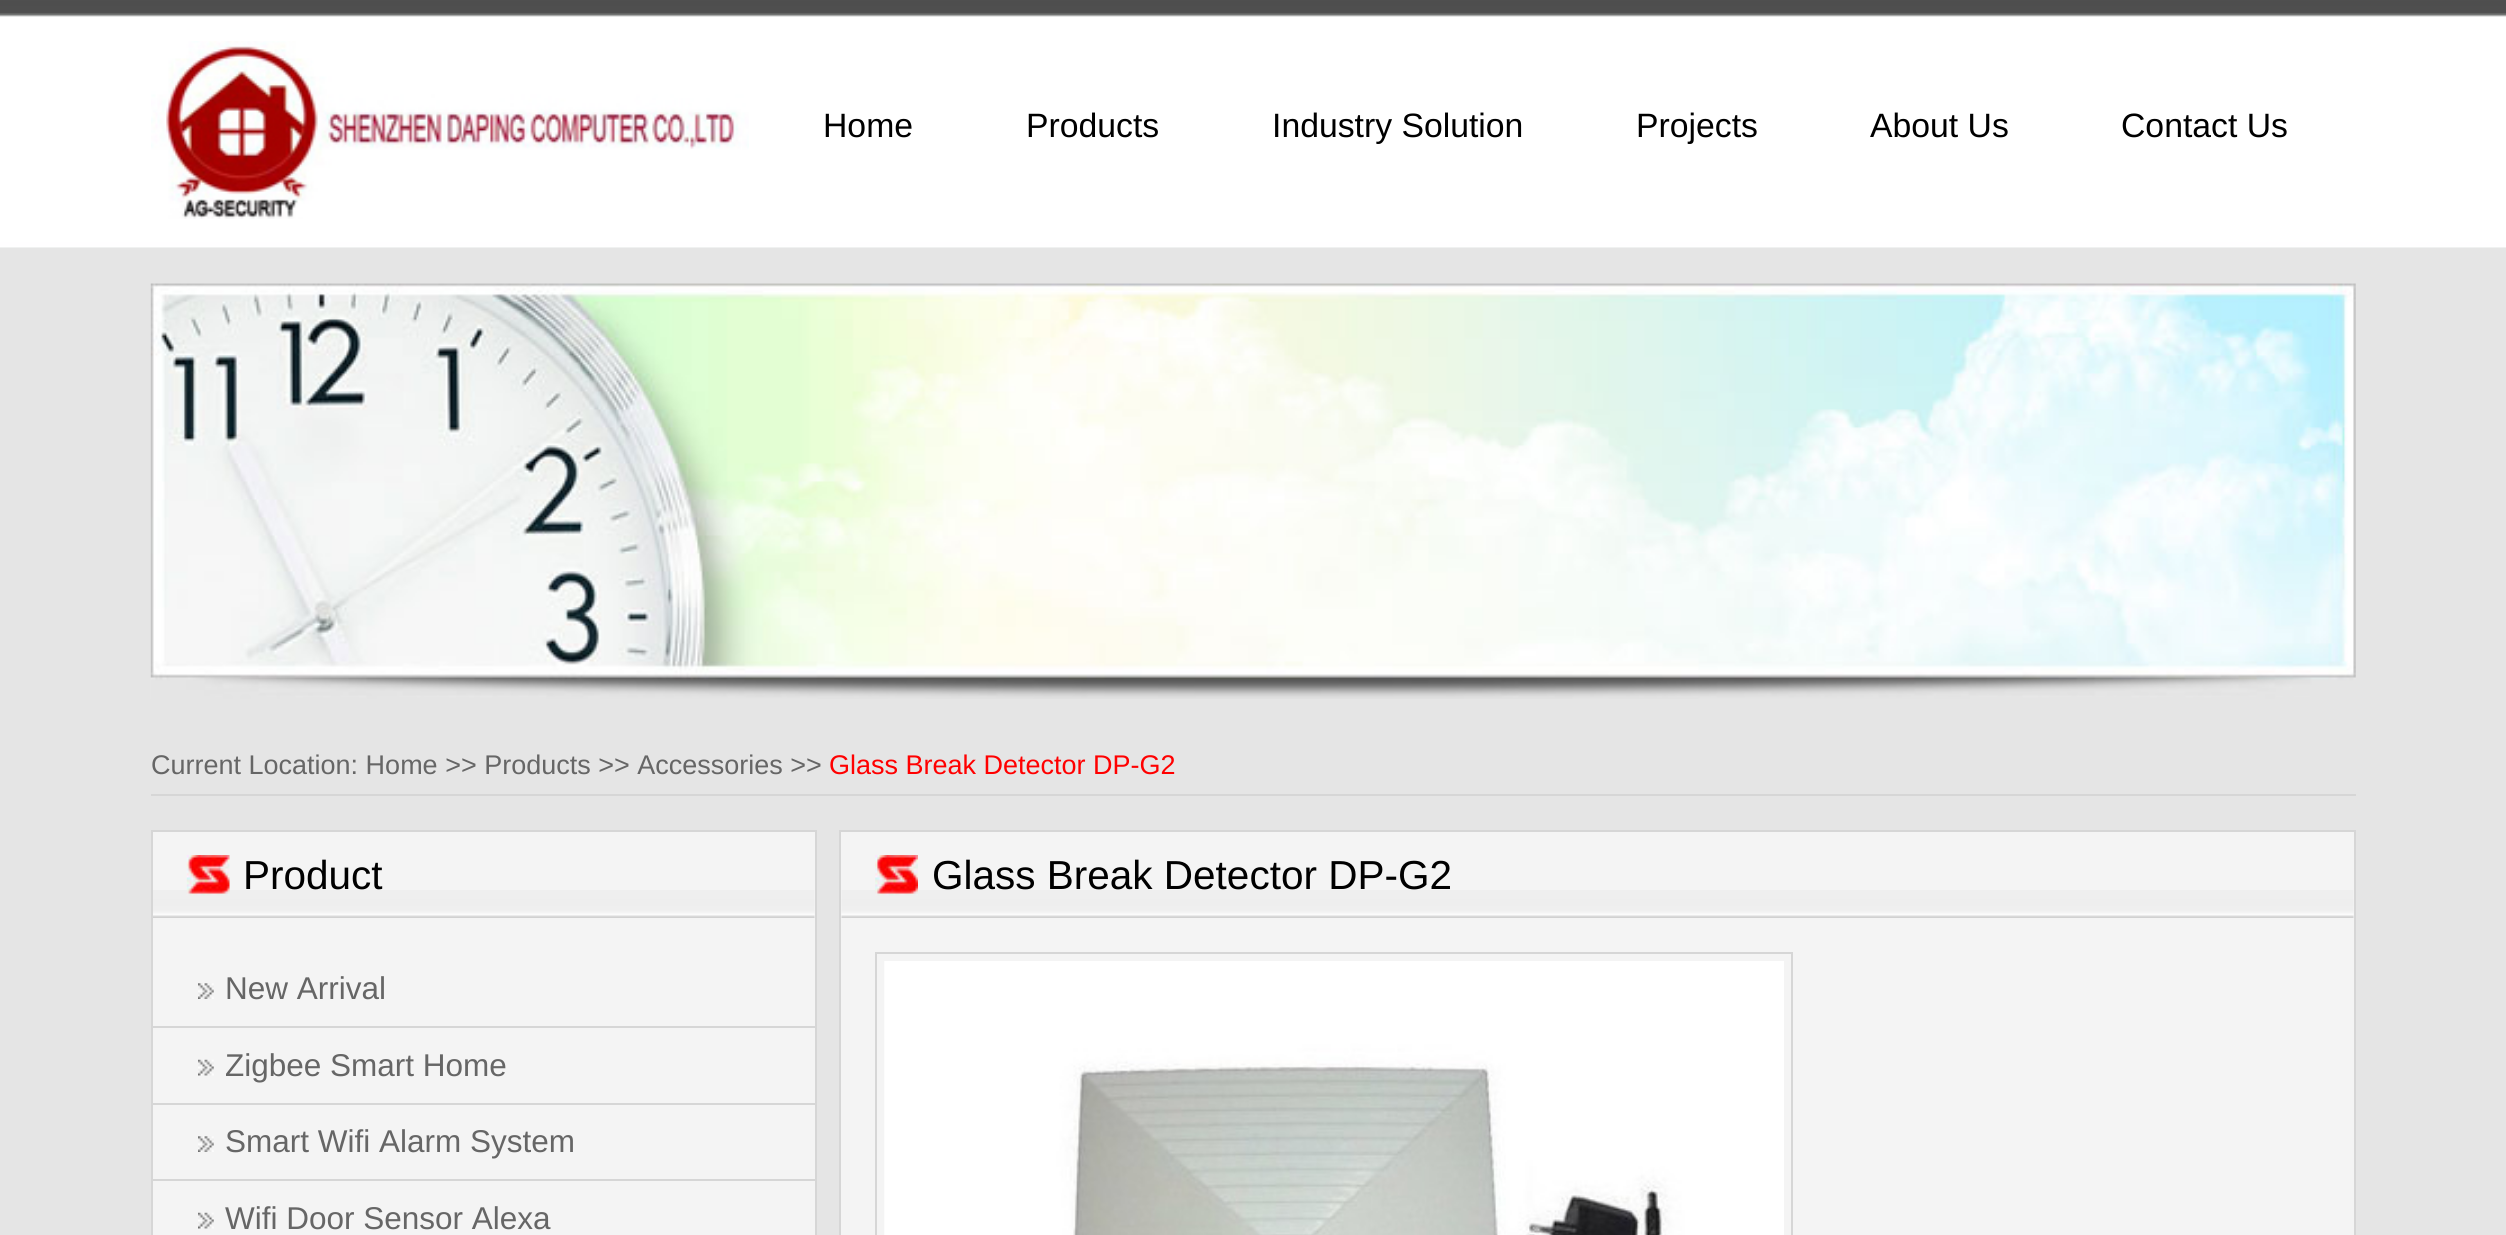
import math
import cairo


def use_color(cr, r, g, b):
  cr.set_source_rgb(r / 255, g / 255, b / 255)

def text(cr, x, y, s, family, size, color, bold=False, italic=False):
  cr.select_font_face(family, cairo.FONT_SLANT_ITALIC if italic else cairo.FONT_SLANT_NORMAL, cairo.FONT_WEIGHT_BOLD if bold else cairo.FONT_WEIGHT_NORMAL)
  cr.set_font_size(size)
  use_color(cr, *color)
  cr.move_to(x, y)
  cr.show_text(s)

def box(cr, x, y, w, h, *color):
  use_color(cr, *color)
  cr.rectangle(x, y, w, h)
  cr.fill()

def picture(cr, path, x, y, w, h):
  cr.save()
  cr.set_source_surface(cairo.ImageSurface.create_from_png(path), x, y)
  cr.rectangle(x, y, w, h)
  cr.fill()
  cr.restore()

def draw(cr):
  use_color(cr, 229, 229, 229)
  cr.paint()
  picture(cr, "img_01.png", 0, 0, 2506, 248)
  picture(cr, "img_02.png", 151, 41, 598, 178)
  picture(cr, "img_03.png", 150, 283, 2206, 416)
  box(cr, 151, 794, 2205, 2, 214, 214, 214)
  use_color(cr, 244, 244, 244)
  cr.rectangle(152, 831, 664, 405)
  cr.fill_preserve()
  use_color(cr, 214, 214, 214)
  cr.stroke()
  picture(cr, "img_04.png", 153, 890, 662, 28)
  picture(cr, "img_05.png", 186, 855, 44, 41)
  box(cr, 153, 1026, 664, 2, 214, 214, 214)
  picture(cr, "img_06.png", 198, 983, 16, 16)
  box(cr, 153, 1103, 664, 2, 214, 214, 214)
  picture(cr, "img_07.png", 198, 1059, 16, 17)
  box(cr, 153, 1179, 664, 2, 214, 214, 214)
  picture(cr, "img_06.png", 198, 1136, 16, 16)
  picture(cr, "img_07.png", 198, 1212, 16, 17)
  use_color(cr, 244, 244, 244)
  cr.rectangle(840, 831, 1515, 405)
  cr.fill_preserve()
  use_color(cr, 214, 214, 214)
  cr.stroke()
  picture(cr, "img_08.png", 841, 890, 1513, 28)
  picture(cr, "img_09.png", 875, 855, 43, 41)
  cr.rectangle(876, 953, 916, 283)
  cr.stroke()
  picture(cr, "img_10.png", 884, 961, 900, 274)
  text(cr, 823, 137, "Home", "Liberation Sans", 33.75, (0, 0, 0))
  text(cr, 1026, 137, "Products", "Liberation Sans", 33.75, (0, 0, 0))
  text(cr, 1272, 137, "Industry Solution", "Liberation Sans", 33.75, (0, 0, 0))
  text(cr, 1636, 137, "Projects", "Liberation Sans", 33.75, (0, 0, 0))
  text(cr, 1870, 137, "About Us", "Liberation Sans", 33.75, (0, 0, 0))
  text(cr, 2121, 137, "Contact Us", "Liberation Sans", 33.75, (0, 0, 0))
  text(cr, 151, 774, "Current Location: Home >> Products >> Accessories >>", "Liberation Sans", 27, (102, 102, 102))
  text(cr, 829, 774, "Glass Break Detector DP-G2", "Liberation Sans", 27, (255, 0, 0))
  text(cr, 243, 889, "Product", "Liberation Sans", 40.5, (0, 0, 0))
  text(cr, 225, 999, "New Arrival", "Liberation Sans", 31.5, (102, 102, 102))
  text(cr, 225, 1076, "Zigbee Smart Home", "Liberation Sans", 31.5, (102, 102, 102))
  text(cr, 225, 1152, "Smart Wifi Alarm System", "Liberation Sans", 31.5, (102, 102, 102))
  text(cr, 225, 1229, "Wifi Door Sensor Alexa", "Liberation Sans", 31.5, (102, 102, 102))
  text(cr, 932, 889, "Glass Break Detector DP-G2", "Liberation Sans", 40.5, (0, 0, 0))


surface = cairo.ImageSurface(cairo.FORMAT_RGB24, 2506, 1235)
cr = cairo.Context(surface)
options = cairo.FontOptions()
options.set_hint_metrics(cairo.HINT_METRICS_OFF)
options.set_hint_style(cairo.HINT_STYLE_NONE)
cr.set_font_options(options)
cr.set_miter_limit(4)
draw(cr)
surface.write_to_png("out.png")
